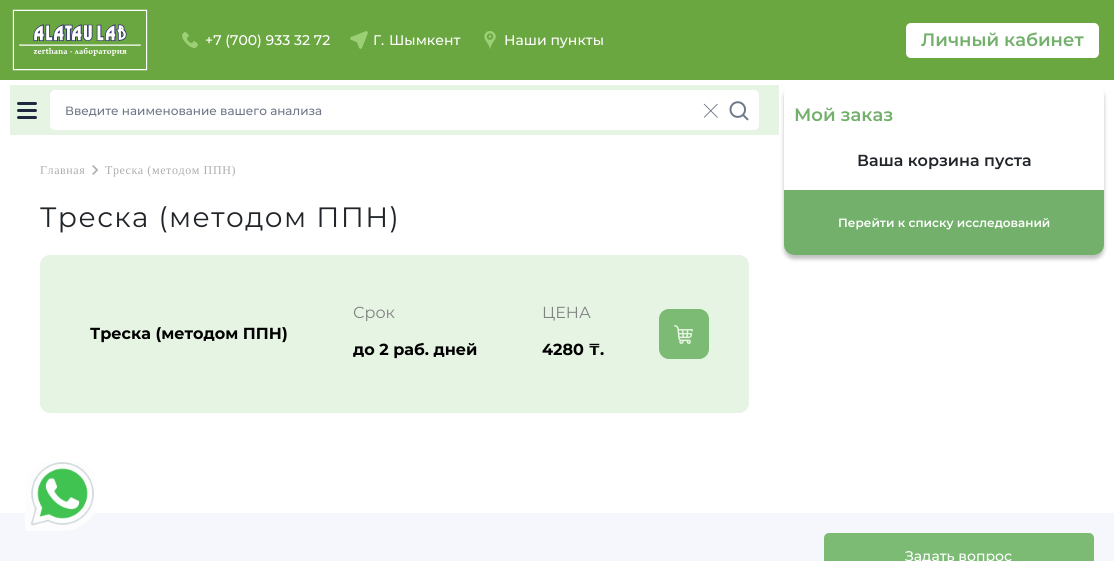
import math
import cairo


def use_color(cr, r, g, b):
  cr.set_source_rgb(r / 255, g / 255, b / 255)

def text(cr, x, y, s, family, size, color, bold=False, italic=False):
  cr.select_font_face(family, cairo.FONT_SLANT_ITALIC if italic else cairo.FONT_SLANT_NORMAL, cairo.FONT_WEIGHT_BOLD if bold else cairo.FONT_WEIGHT_NORMAL)
  cr.set_font_size(size)
  use_color(cr, *color)
  cr.move_to(x, y)
  cr.show_text(s)

def spaced_text(cr, x, y, s, letter, word):
  cr.move_to(x, y)
  for ch in s:
    cr.show_text(ch)
    cr.rel_move_to(letter + word * (ch == ' '), 0)

def box(cr, x, y, w, h, *color):
  use_color(cr, *color)
  cr.rectangle(x, y, w, h)
  cr.fill()

def round_rect(cr, x, y, w, h, r):
  cr.new_sub_path()
  for i, (u, v) in enumerate([(x + w - r, y + h - r), (x + r, y + h - r), (x + r, y + r), (x + w - r, y + r)]):
    cr.arc(u, v, r, i * math.pi / 2, (i + 1) * math.pi / 2)
  cr.close_path()

def shadow(cr, x, y, w, h, r, blur, alpha):
  cr.push_group_with_content(cairo.CONTENT_ALPHA)
  cr.set_operator(cairo.OPERATOR_SOURCE)
  for i in range(15, -16, -2):
    e = blur * i / 6
    if min(w, h) + 2 * e > 0:
      cr.set_source_rgba(0, 0, 0, alpha * math.erfc((i - 1) / 8.5) / 2)
      round_rect(cr, x - e, y - e, w + 2 * e, h + 2 * e, max(0, min(r + e + blur * .6, min(w, h) / 2 + e)))
      cr.fill()
  cr.mask(cr.pop_group())

def picture(cr, path, x, y, w, h):
  cr.save()
  cr.set_source_surface(cairo.ImageSurface.create_from_png(path), x, y)
  cr.rectangle(x, y, w, h)
  cr.fill()
  cr.restore()

def draw(cr):
  use_color(cr, 255, 255, 255)
  cr.paint()
  box(cr, 0, 0, 1114, 80, 107, 167, 65)
  picture(cr, "img_01.png", 12, 9, 136, 62)
  picture(cr, "img_02.png", 182, 32, 16, 16)
  picture(cr, "img_03.png", 350, 31, 18, 18)
  picture(cr, "img_04.png", 484, 31, 12, 18)
  use_color(cr, 255, 255, 255)
  round_rect(cr, 906, 23, 193, 35, 5)
  cr.fill()
  box(cr, 10, 85, 769, 50, 229, 244, 227)
  use_color(cr, 29, 41, 63)
  round_rect(cr, 17, 109, 20, 3, 1.5)
  cr.fill()
  round_rect(cr, 17, 102, 20, 3, 1.5)
  cr.fill()
  round_rect(cr, 17, 116, 20, 3, 1.5)
  cr.fill()
  use_color(cr, 255, 255, 255)
  round_rect(cr, 50, 90, 709, 40, 5)
  cr.fill()
  cr.new_path()
  cr.move_to(717.5, 104)
  cr.line_to(704, 117.5)
  cr.move_to(704, 104)
  cr.line_to(717.5, 117.5)
  use_color(cr, 110, 119, 135)
  cr.set_line_width(0.9)
  cr.stroke()
  picture(cr, "img_05.png", 729, 101, 20, 20)
  use_color(cr, 0, 0, 0)
  shadow(cr, 784, 88, 320, 171, 10, 2, 0.25)
  use_color(cr, 255, 255, 255)
  round_rect(cr, 784, 84, 320, 171, 10)
  cr.fill()
  use_color(cr, 115, 176, 107)
  cr.new_path()
  cr.move_to(784, 190)
  cr.line_to(1104, 190)
  cr.line_to(1104, 245)
  cr.curve_to(1104, 250.5, 1099.5, 255, 1094, 255)
  cr.line_to(794, 255)
  cr.curve_to(788.5, 255, 784, 250.5, 784, 245)
  cr.close_path()
  cr.fill()
  picture(cr, "img_06.png", 92, 165, 7, 10)
  use_color(cr, 229, 244, 227)
  round_rect(cr, 40, 255, 709, 158, 10)
  cr.fill()
  use_color(cr, 124, 187, 116)
  round_rect(cr, 659, 309, 50, 50, 10)
  cr.fill()
  picture(cr, "img_07.png", 674, 325, 19, 19)
  box(cr, 0, 513, 1114, 48, 246, 247, 252)
  picture(cr, "img_08.png", 25, 462, 69, 69)
  use_color(cr, 124, 187, 116)
  round_rect(cr, 824, 533, 270, 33, 5)
  cr.fill()
  text(cr, 205, 45, "+7 (700) 933 32 72", "Montserrat Medium", 14, (255, 255, 255))
  text(cr, 373, 45, "Г.", "Montserrat Medium", 14, (255, 255, 255))
  text(cr, 389, 45, "Шымкент", "Montserrat Medium", 14, (255, 255, 255))
  text(cr, 504, 45, "Наши пункты", "Montserrat Medium", 14, (255, 255, 255))
  text(cr, 921, 46, "Личный кабинет", "Montserrat SemiBold", 18, (115, 176, 107))
  text(cr, 65, 115, "Введите наименование вашего анализа", "Montserrat Medium", 12, (110, 119, 135))
  text(cr, 794, 121, "Мой заказ", "Montserrat SemiBold", 18, (115, 176, 107))
  text(cr, 857, 166, "Ваша корзина пуста", "Montserrat SemiBold", 16, (33, 37, 41))
  text(cr, 838, 227, "Перейти к списку исследований", "Montserrat SemiBold", 12, (255, 255, 255))
  cr.select_font_face("Liberation Serif")
  use_color(cr, 174, 174, 174)
  spaced_text(cr, 40, 174, "Главная", 0.6, 0)
  spaced_text(cr, 105, 174, "Треска (методом ППН)", 0.6, 0)
  cr.select_font_face("Montserrat")
  cr.set_font_size(28)
  use_color(cr, 33, 37, 41)
  spaced_text(cr, 40, 227, "Треска (методом ППН)", 1.4, 0)
  text(cr, 90, 339, "Треска (методом ППН)", "Montserrat", 16, (0, 0, 0), bold=True)
  text(cr, 353, 318, "Срок", "Montserrat", 16, (130, 130, 130))
  text(cr, 353, 355, "до 2 раб. дней", "Montserrat", 16, (0, 0, 0), bold=True)
  text(cr, 542, 318, "ЦЕНА", "Montserrat", 16, (130, 130, 130))
  text(cr, 542, 355, "4280 ₸.", "Montserrat", 16, (0, 0, 0), bold=True)
  text(cr, 905, 561, "Задать вопрос", "Montserrat Medium", 14, (255, 255, 255))


surface = cairo.ImageSurface(cairo.FORMAT_RGB24, 1114, 561)
cr = cairo.Context(surface)
options = cairo.FontOptions()
options.set_hint_metrics(cairo.HINT_METRICS_OFF)
options.set_hint_style(cairo.HINT_STYLE_NONE)
cr.set_font_options(options)
cr.set_miter_limit(4)
draw(cr)
surface.write_to_png("out.png")
